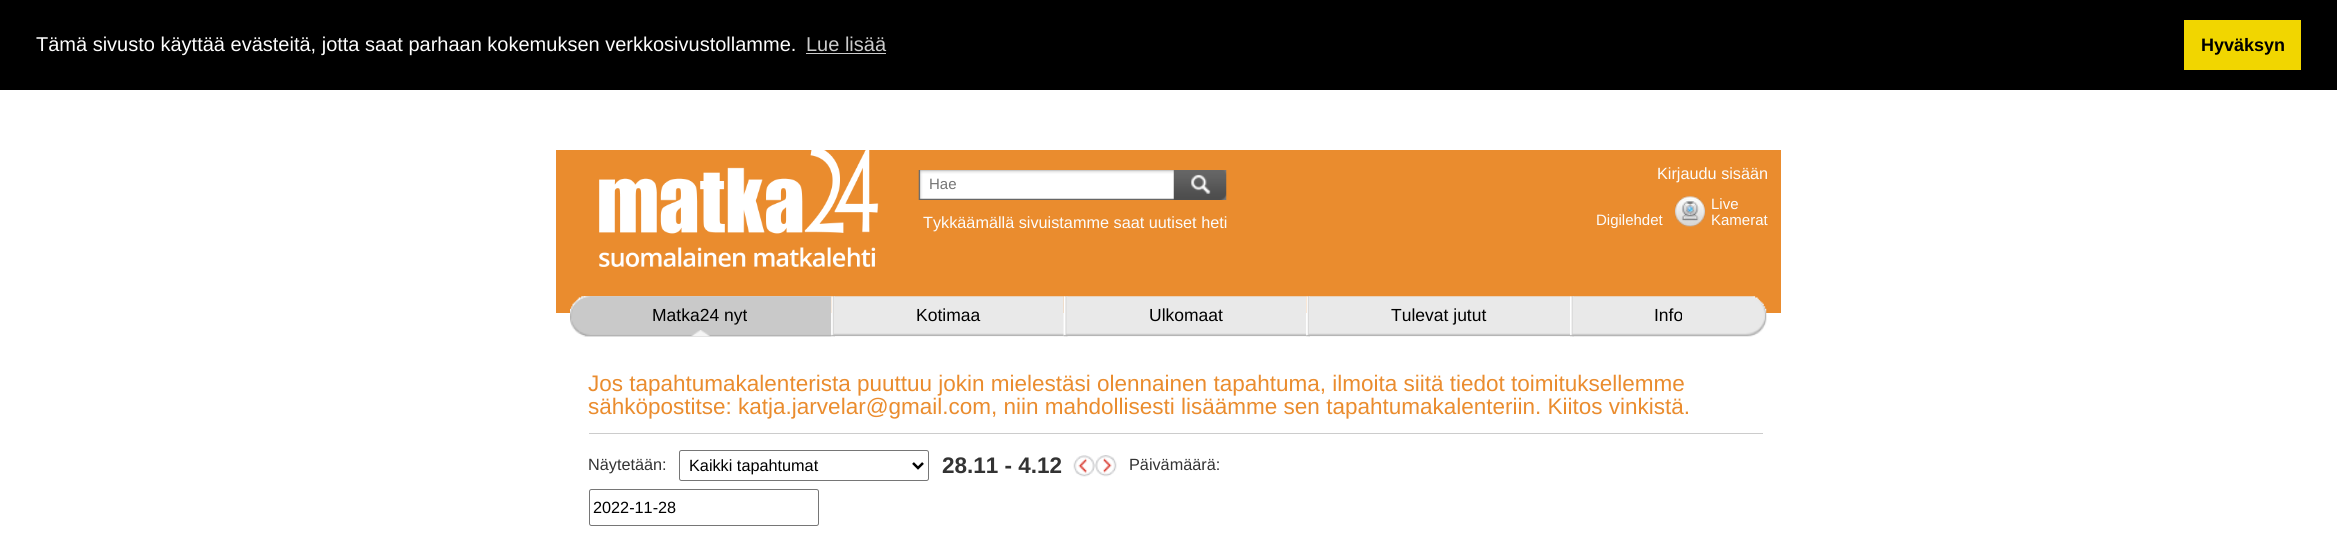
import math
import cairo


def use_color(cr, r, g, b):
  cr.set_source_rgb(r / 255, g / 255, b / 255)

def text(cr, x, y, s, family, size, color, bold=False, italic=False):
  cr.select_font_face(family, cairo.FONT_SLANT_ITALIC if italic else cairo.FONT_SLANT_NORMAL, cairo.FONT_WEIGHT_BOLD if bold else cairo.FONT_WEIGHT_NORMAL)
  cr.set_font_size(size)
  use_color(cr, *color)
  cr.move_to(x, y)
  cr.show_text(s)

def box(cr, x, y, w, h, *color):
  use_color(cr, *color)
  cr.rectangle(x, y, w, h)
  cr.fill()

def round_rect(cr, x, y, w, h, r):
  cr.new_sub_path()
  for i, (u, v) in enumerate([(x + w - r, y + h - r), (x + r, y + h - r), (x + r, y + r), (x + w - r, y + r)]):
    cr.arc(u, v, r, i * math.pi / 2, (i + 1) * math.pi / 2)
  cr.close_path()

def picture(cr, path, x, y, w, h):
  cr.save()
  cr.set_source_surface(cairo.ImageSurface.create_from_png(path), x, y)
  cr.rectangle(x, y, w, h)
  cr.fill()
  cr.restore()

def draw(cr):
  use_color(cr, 255, 255, 255)
  cr.paint()
  box(cr, 0, 0, 2337, 90, 0, 0, 0)
  box(cr, 806, 53, 80, 1, 204, 204, 204)
  box(cr, 2184, 20, 117, 50, 241, 214, 0)
  box(cr, 556, 150, 1225, 163, 234, 140, 46)
  picture(cr, "img_01.png", 599, 150, 280, 117)
  picture(cr, "img_02.png", 918, 170, 309, 30)
  picture(cr, "img_03.png", 1675, 196, 30, 31)
  picture(cr, "img_04.png", 570, 296, 262, 41)
  picture(cr, "img_05.png", 570, 296, 262, 41)
  picture(cr, "img_06.png", 691, 330, 19, 7)
  picture(cr, "img_07.png", 831, 296, 4, 41)
  picture(cr, "img_08.png", 833, 296, 231, 41)
  picture(cr, "img_09.png", 1063, 296, 5, 41)
  picture(cr, "img_10.png", 1066, 296, 241, 41)
  picture(cr, "img_11.png", 1306, 296, 4, 41)
  picture(cr, "img_12.png", 1308, 296, 262, 41)
  picture(cr, "img_13.png", 1570, 296, 4, 41)
  picture(cr, "img_14.png", 1572, 296, 195, 41)
  box(cr, 589, 433, 1174, 1, 204, 204, 204)
  round_rect(cr, 679.5, 450.5, 249, 30, 2)
  use_color(cr, 118, 118, 118)
  cr.set_line_width(1)
  cr.stroke()
  cr.new_path()
  cr.move_to(913, 463)
  cr.line_to(918, 468)
  cr.line_to(923, 463)
  use_color(cr, 0, 0, 0)
  cr.set_line_width(2.5)
  cr.stroke()
  picture(cr, "img_15.png", 1073, 455, 22, 22)
  picture(cr, "img_16.png", 1095, 455, 22, 22)
  round_rect(cr, 589.5, 489.5, 229, 36, 2)
  use_color(cr, 118, 118, 118)
  cr.set_line_width(1)
  cr.stroke()
  text(cr, 36, 51, "Tämä sivusto käyttää evästeitä, jotta saat parhaan kokemuksen verkkosivustollamme.", "Liberation Sans", 20, (252, 252, 252))
  text(cr, 806, 51, "Lue lisää", "Liberation Sans", 20, (204, 204, 204))
  text(cr, 2201, 51, "Hyväksyn", "Liberation Sans", 18, (0, 0, 0), bold=True)
  text(cr, 929, 189, "Hae", "Liberation Sans", 15, (117, 117, 117))
  text(cr, 923, 228, "Tykkäämällä sivuistamme saat uutiset heti", "Liberation Sans", 16.25, (252, 252, 252))
  text(cr, 1657, 179, "Kirjaudu sisään", "Liberation Sans", 16.25, (252, 252, 252))
  text(cr, 1596, 225, "Digilehdet", "Liberation Sans", 15, (252, 252, 252))
  text(cr, 1711, 209, "Live", "Liberation Sans", 15, (252, 252, 252))
  text(cr, 1711, 225, "Kamerat", "Liberation Sans", 15, (252, 252, 252))
  text(cr, 652, 321, "Matka24 nyt", "Liberation Sans", 17.5, (0, 0, 0))
  text(cr, 916, 321, "Kotimaa", "Liberation Sans", 17.5, (0, 0, 0))
  text(cr, 1149, 321, "Ulkomaat", "Liberation Sans", 17.5, (0, 0, 0))
  text(cr, 1391, 321, "Tulevat jutut", "Liberation Sans", 17.5, (0, 0, 0))
  text(cr, 1654, 321, "Info", "Liberation Sans", 17.5, (0, 0, 0))
  text(cr, 588, 391, "Jos tapahtumakalenterista puuttuu jokin mielestäsi olennainen tapahtuma, ilmoita siitä tiedot toimituksellemme", "Liberation Sans", 22.5, (234, 140, 46))
  text(cr, 588, 414, "sähköpostitse: katja.jarvelar@gmail.com, niin mahdollisesti lisäämme sen tapahtumakalenteriin. Kiitos vinkistä.", "Liberation Sans", 22.5, (234, 140, 46))
  text(cr, 588, 470, "Näytetään:", "Liberation Sans", 16.25, (51, 51, 51))
  text(cr, 689, 471, "Kaikki tapahtumat", "Liberation Sans", 16.25, (0, 0, 0))
  text(cr, 942, 473, "28.11 - 4.12", "Liberation Sans", 22.5, (51, 51, 51), bold=True)
  text(cr, 1129, 470, "Päivämäärä:", "Liberation Sans", 16.25, (51, 51, 51))
  text(cr, 593, 513, "2022-11-28", "Liberation Sans", 16.25, (0, 0, 0))


surface = cairo.ImageSurface(cairo.FORMAT_RGB24, 2337, 539)
cr = cairo.Context(surface)
options = cairo.FontOptions()
options.set_hint_metrics(cairo.HINT_METRICS_OFF)
options.set_hint_style(cairo.HINT_STYLE_NONE)
cr.set_font_options(options)
cr.set_miter_limit(4)
draw(cr)
surface.write_to_png("out.png")
